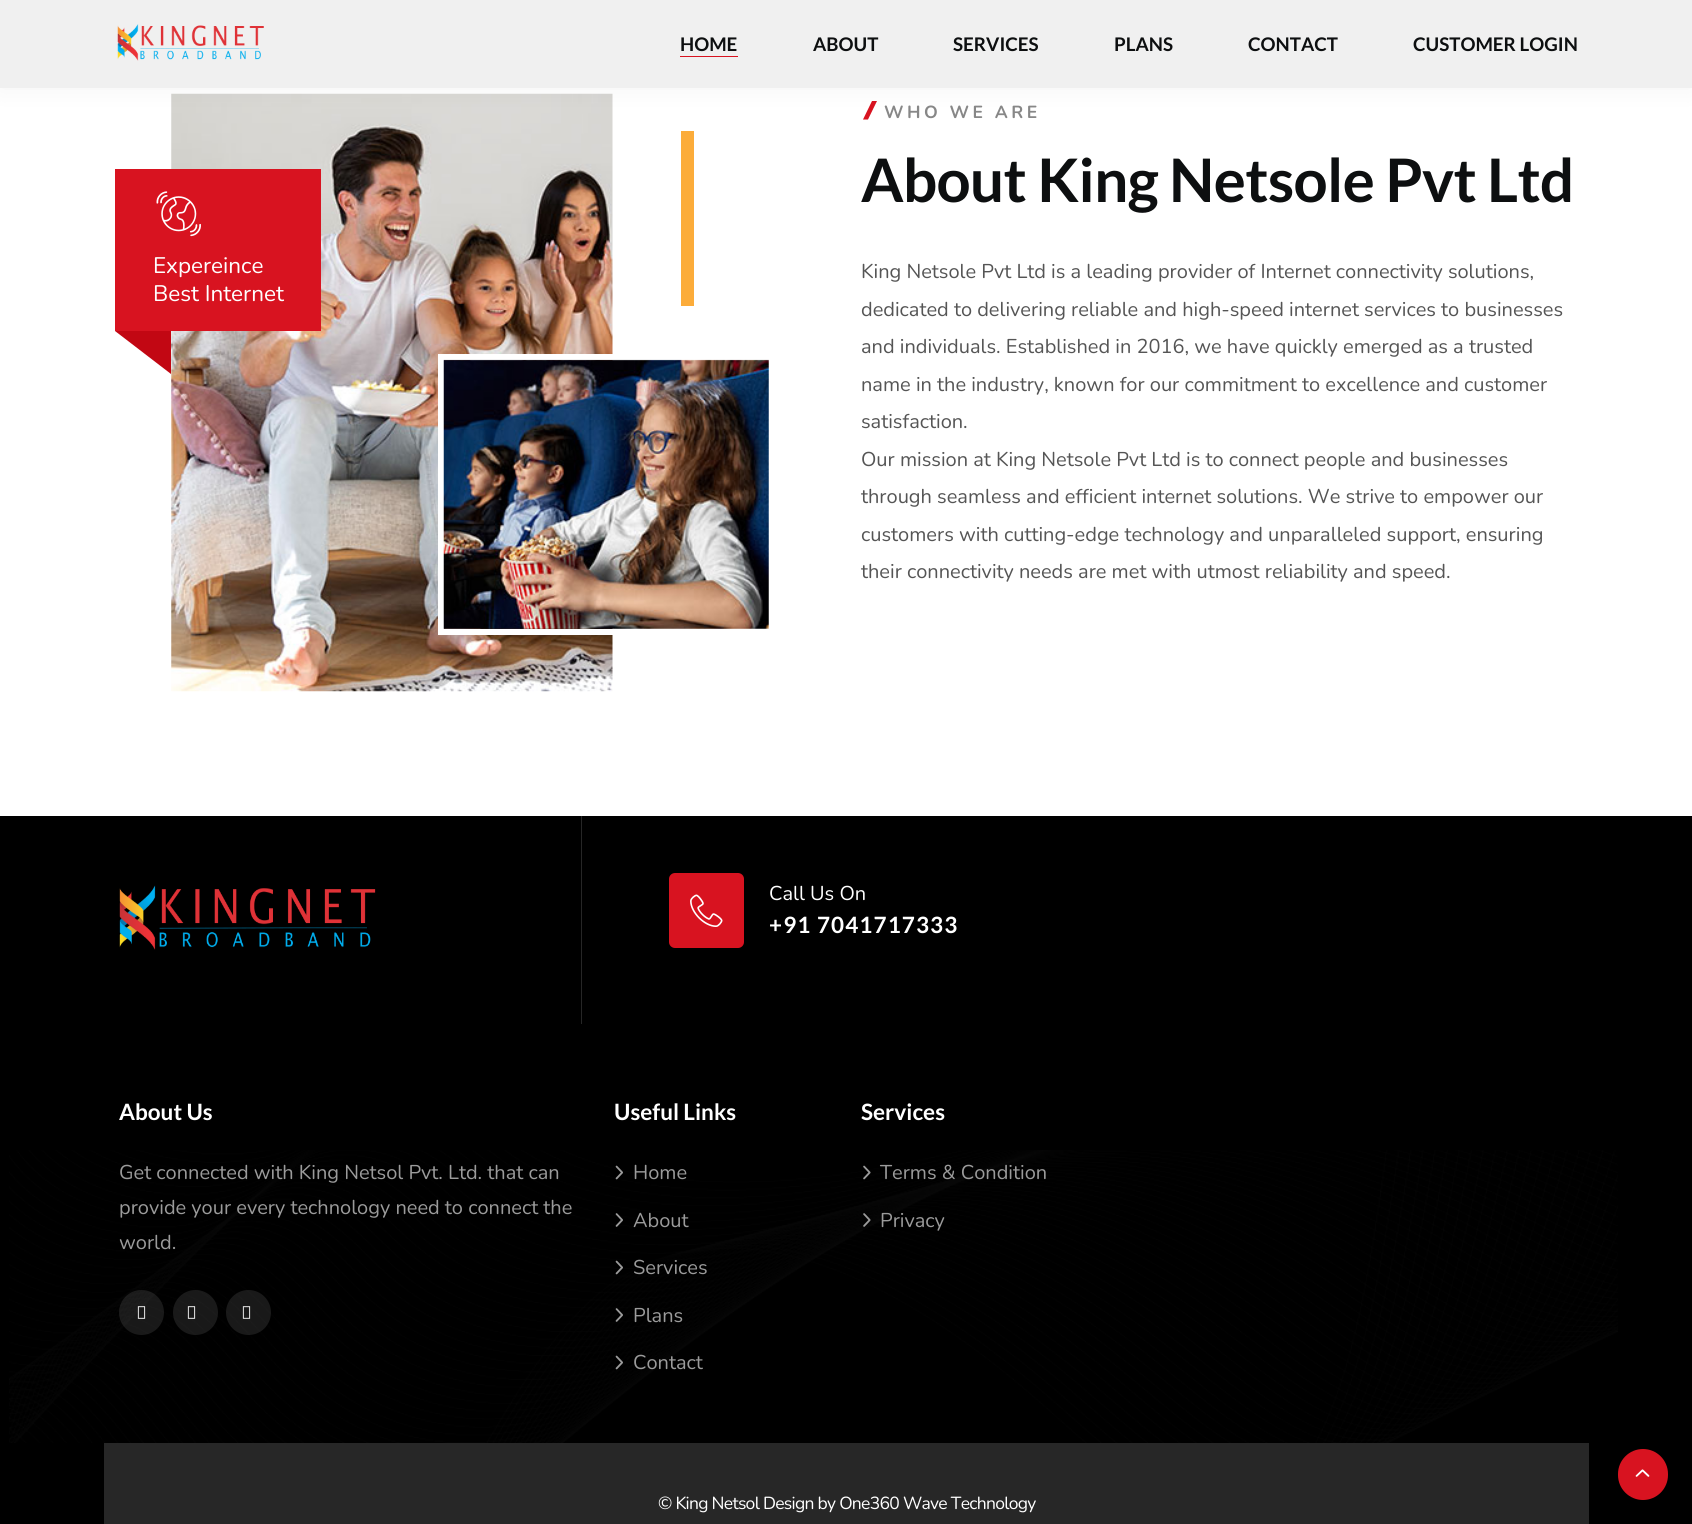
import math
import cairo


def use_color(cr, r, g, b):
  cr.set_source_rgb(r / 255, g / 255, b / 255)

def text(cr, x, y, s, family, size, color, bold=False, italic=False):
  cr.select_font_face(family, cairo.FONT_SLANT_ITALIC if italic else cairo.FONT_SLANT_NORMAL, cairo.FONT_WEIGHT_BOLD if bold else cairo.FONT_WEIGHT_NORMAL)
  cr.set_font_size(size)
  use_color(cr, *color)
  cr.move_to(x, y)
  cr.show_text(s)

def spaced_text(cr, x, y, s, letter, word):
  cr.move_to(x, y)
  for ch in s:
    cr.show_text(ch)
    cr.rel_move_to(letter + word * (ch == ' '), 0)

def box(cr, x, y, w, h, *color):
  use_color(cr, *color)
  cr.rectangle(x, y, w, h)
  cr.fill()

def round_rect(cr, x, y, w, h, r):
  cr.new_sub_path()
  for i, (u, v) in enumerate([(x + w - r, y + h - r), (x + r, y + h - r), (x + r, y + r), (x + w - r, y + r)]):
    cr.arc(u, v, r, i * math.pi / 2, (i + 1) * math.pi / 2)
  cr.close_path()

def shadow(cr, x, y, w, h, r, blur, alpha):
  cr.push_group_with_content(cairo.CONTENT_ALPHA)
  cr.set_operator(cairo.OPERATOR_SOURCE)
  for i in range(15, -16, -2):
    e = blur * i / 6
    if min(w, h) + 2 * e > 0:
      cr.set_source_rgba(0, 0, 0, alpha * math.erfc((i - 1) / 8.5) / 2)
      round_rect(cr, x - e, y - e, w + 2 * e, h + 2 * e, max(0, min(r + e + blur * .6, min(w, h) / 2 + e)))
      cr.fill()
  cr.mask(cr.pop_group())

def picture(cr, path, x, y, w, h):
  cr.save()
  cr.set_source_surface(cairo.ImageSurface.create_from_png(path), x, y)
  cr.rectangle(x, y, w, h)
  cr.fill()
  cr.restore()

def draw(cr):
  use_color(cr, 255, 255, 255)
  cr.paint()
  picture(cr, "img_02.png", 171, 93, 442, 599)
  use_color(cr, 216, 19, 32)
  cr.new_path()
  cr.move_to(872, 101)
  cr.line_to(877, 101)
  cr.line_to(868, 119.5)
  cr.line_to(863, 119.5)
  cr.close_path()
  cr.fill()
  use_color(cr, 0, 0, 0)
  shadow(cr, 0, 0, 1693, 88, 0, 12.5, 0.05)
  box(cr, 0, 0, 1692, 88, 240, 240, 240)
  picture(cr, "img_01.png", 117, 24, 147, 37)
  box(cr, 680, 56, 58, 1, 216, 19, 32)
  box(cr, 681, 131, 13, 175, 252, 172, 58)
  box(cr, 115, 169, 206, 162, 216, 19, 32)
  picture(cr, "img_03.png", 156, 191, 45, 46)
  use_color(cr, 194, 7, 19)
  cr.new_path()
  cr.move_to(115, 331)
  cr.line_to(171, 331)
  cr.line_to(171, 374)
  cr.close_path()
  cr.fill()
  cr.rectangle(441, 357, 331, 275)
  use_color(cr, 255, 255, 255)
  cr.set_line_width(6)
  cr.stroke()
  picture(cr, "img_04.png", 443, 359, 326, 270)
  box(cr, 0, 816, 1692, 708, 0, 0, 0)
  box(cr, 581, 816, 1, 208, 38, 38, 38)
  picture(cr, "img_05.png", 119, 885, 257, 65)
  use_color(cr, 216, 19, 32)
  round_rect(cr, 669, 873, 75, 75, 6)
  cr.fill()
  picture(cr, "img_06.png", 690, 894, 33, 33)
  picture(cr, "img_17.png", 9, 1150, 1609, 293)
  cr.set_source_rgba(1, 1, 1, 0.1)
  cr.arc(141.5, 1312.5, 22.5, 0, 2 * math.pi)
  cr.fill()
  picture(cr, "img_07.png", 137, 1306, 9, 13)
  cr.arc(195.5, 1312.5, 22.5, 0, 2 * math.pi)
  cr.fill()
  picture(cr, "img_08.png", 187, 1306, 9, 13)
  cr.arc(248.5, 1312.5, 22.5, 0, 2 * math.pi)
  cr.fill()
  picture(cr, "img_09.png", 242, 1306, 9, 13)
  picture(cr, "img_10.png", 615, 1165, 8, 15)
  picture(cr, "img_11.png", 615, 1213, 8, 14)
  picture(cr, "img_12.png", 615, 1260, 8, 15)
  picture(cr, "img_13.png", 615, 1308, 8, 14)
  picture(cr, "img_14.png", 615, 1355, 8, 15)
  picture(cr, "img_15.png", 863, 1165, 8, 15)
  picture(cr, "img_16.png", 863, 1213, 8, 14)
  box(cr, 104, 1443, 1485, 81, 39, 39, 39)
  use_color(cr, 216, 19, 32)
  round_rect(cr, 1618, 1449, 50, 51, 25)
  cr.fill()
  picture(cr, "img_18.png", 1635, 1469, 15, 8)
  text(cr, 680, 51, "HOME", "Lato", 18.75, (13, 15, 16), bold=True)
  text(cr, 813, 51, "ABOUT", "Lato", 18.75, (13, 15, 16), bold=True)
  text(cr, 953, 51, "SERVICES", "Lato", 18.75, (13, 15, 16), bold=True)
  text(cr, 1114, 51, "PLANS", "Lato", 18.75, (13, 15, 16), bold=True)
  text(cr, 1248, 51, "CONTACT", "Lato", 18.75, (13, 15, 16), bold=True)
  text(cr, 1413, 51, "CUSTOMER LOGIN", "Lato", 18.75, (13, 15, 16), bold=True)
  text(cr, 153, 273, "Expereince", "Nunito", 22.5, (255, 255, 255))
  text(cr, 153, 301, "Best Internet", "Nunito", 22.5, (255, 255, 255))
  cr.select_font_face("Nunito", cairo.FONT_SLANT_NORMAL, cairo.FONT_WEIGHT_BOLD)
  cr.set_font_size(17.5)
  use_color(cr, 135, 135, 135)
  spaced_text(cr, 884, 118, "WHO WE ARE", 3.5, 0)
  cr.select_font_face("Lato", cairo.FONT_SLANT_NORMAL, cairo.FONT_WEIGHT_BOLD)
  cr.set_font_size(60)
  use_color(cr, 13, 15, 16)
  spaced_text(cr, 861, 202, "About King Netsole Pvt Ltd", -0.6, 0)
  text(cr, 861, 278, "King Netsole Pvt Ltd is a leading provider of Internet connectivity solutions,", "Nunito", 20, (85, 85, 85))
  text(cr, 861, 316, "dedicated to delivering reliable and high-speed internet services to businesses", "Nunito", 20, (85, 85, 85))
  text(cr, 861, 353, "and individuals. Established in 2016, we have quickly emerged as a trusted", "Nunito", 20, (85, 85, 85))
  text(cr, 861, 391, "name in the industry, known for our commitment to excellence and customer", "Nunito", 20, (85, 85, 85))
  text(cr, 861, 428, "satisfaction.", "Nunito", 20, (85, 85, 85))
  text(cr, 861, 466, "Our mission at King Netsole Pvt Ltd is to connect people and businesses", "Nunito", 20, (85, 85, 85))
  text(cr, 861, 503, "through seamless and efficient internet solutions. We strive to empower our", "Nunito", 20, (85, 85, 85))
  text(cr, 861, 541, "customers with cutting-edge technology and unparalleled support, ensuring", "Nunito", 20, (85, 85, 85))
  text(cr, 861, 578, "their connectivity needs are met with utmost reliability and speed.", "Nunito", 20, (85, 85, 85))
  text(cr, 769, 900, "Call Us On", "Nunito", 20, (255, 255, 255))
  cr.select_font_face("Lato", cairo.FONT_SLANT_NORMAL, cairo.FONT_WEIGHT_BOLD)
  cr.set_font_size(22.5)
  spaced_text(cr, 769, 933, "+91 7041717333", 1.1, 0)
  text(cr, 119, 1120, "About Us", "Lato", 22.5, (255, 255, 255), bold=True)
  text(cr, 119, 1179, "Get connected with King Netsol Pvt. Ltd. that can", "Nunito", 20, (155, 155, 155))
  text(cr, 119, 1214, "provide your every technology need to connect the", "Nunito", 20, (155, 155, 155))
  text(cr, 119, 1249, "world.", "Nunito", 20, (155, 155, 155))
  text(cr, 614, 1120, "Useful Links", "Lato", 22.5, (255, 255, 255), bold=True)
  text(cr, 633, 1179, "Home", "Nunito", 20, (155, 155, 155))
  text(cr, 633, 1227, "About", "Nunito", 20, (155, 155, 155))
  text(cr, 633, 1274, "Services", "Nunito", 20, (155, 155, 155))
  text(cr, 633, 1322, "Plans", "Nunito", 20, (155, 155, 155))
  text(cr, 633, 1369, "Contact", "Nunito", 20, (155, 155, 155))
  text(cr, 861, 1120, "Services", "Lato", 22.5, (255, 255, 255), bold=True)
  text(cr, 880, 1179, "Terms & Condition", "Nunito", 20, (155, 155, 155))
  text(cr, 880, 1227, "Privacy", "Nunito", 20, (155, 155, 155))
  cr.set_font_size(17.5)
  use_color(cr, 255, 255, 255)
  spaced_text(cr, 658, 1509, "© King Netsol Design by One360 Wave Technology", -0.7, 0)


surface = cairo.ImageSurface(cairo.FORMAT_RGB24, 1692, 1524)
cr = cairo.Context(surface)
options = cairo.FontOptions()
options.set_hint_metrics(cairo.HINT_METRICS_OFF)
options.set_hint_style(cairo.HINT_STYLE_NONE)
cr.set_font_options(options)
cr.set_miter_limit(4)
draw(cr)
surface.write_to_png("out.png")
